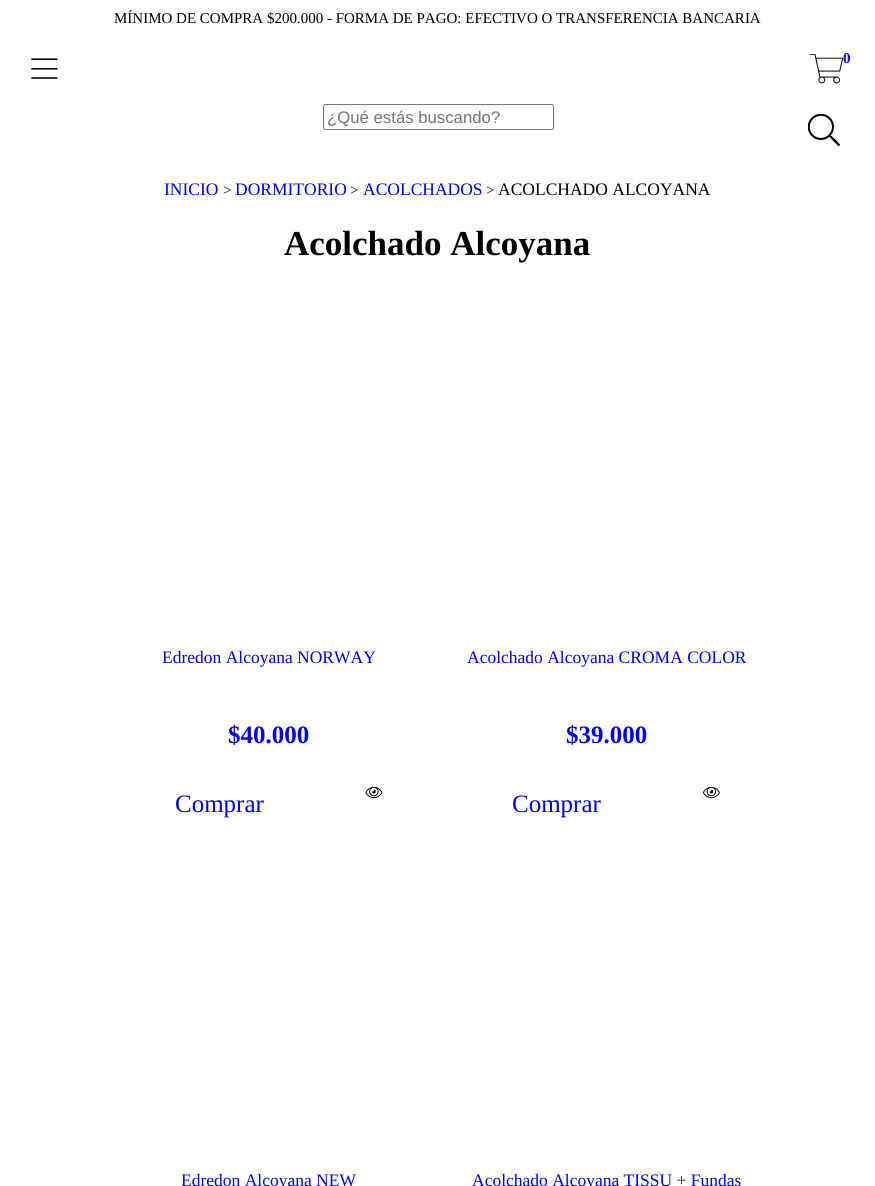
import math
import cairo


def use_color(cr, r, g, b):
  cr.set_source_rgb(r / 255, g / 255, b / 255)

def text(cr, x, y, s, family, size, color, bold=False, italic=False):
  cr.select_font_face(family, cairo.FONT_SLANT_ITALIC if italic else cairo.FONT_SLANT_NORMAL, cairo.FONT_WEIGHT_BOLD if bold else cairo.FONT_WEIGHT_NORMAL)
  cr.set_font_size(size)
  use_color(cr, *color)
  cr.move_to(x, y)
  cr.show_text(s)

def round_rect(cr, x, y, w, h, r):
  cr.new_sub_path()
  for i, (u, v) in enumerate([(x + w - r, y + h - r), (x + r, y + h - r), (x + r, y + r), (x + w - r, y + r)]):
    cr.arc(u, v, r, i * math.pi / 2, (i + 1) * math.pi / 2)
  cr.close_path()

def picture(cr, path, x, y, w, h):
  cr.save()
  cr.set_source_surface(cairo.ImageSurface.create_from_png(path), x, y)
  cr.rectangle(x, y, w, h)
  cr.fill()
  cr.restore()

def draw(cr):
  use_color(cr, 255, 255, 255)
  cr.paint()
  picture(cr, "img_01.png", 31, 58, 27, 21)
  picture(cr, "img_02.png", 809, 54, 35, 30)
  round_rect(cr, 323.5, 104.5, 230, 25, 2)
  use_color(cr, 118, 118, 118)
  cr.set_line_width(1)
  cr.stroke()
  picture(cr, "img_03.png", 808, 114, 32, 32)
  picture(cr, "img_04.png", 365, 786, 18, 13)
  picture(cr, "img_05.png", 703, 786, 17, 13)
  text(cr, 114, 23, "MÍNIMO DE COMPRA $200.000 - FORMA DE PAGO: EFECTIVO O TRANSFERENCIA BANCARIA", "Liberation Serif", 15, (0, 0, 0))
  text(cr, 843, 63, "0", "Liberation Serif", 15, (0, 0, 238), bold=True)
  text(cr, 327, 123, "¿Qué estás buscando?", "Liberation Sans", 16.75, (117, 117, 117))
  text(cr, 164, 195, "INICIO", "Liberation Serif", 17.5, (0, 0, 238))
  text(cr, 223, 195, ">", "Liberation Serif", 15, (0, 0, 0))
  text(cr, 235, 195, "DORMITORIO", "Liberation Serif", 17.5, (0, 0, 238))
  text(cr, 350, 195, ">", "Liberation Serif", 15, (0, 0, 0))
  text(cr, 363, 195, "ACOLCHADOS", "Liberation Serif", 17.5, (0, 0, 238))
  text(cr, 486, 195, ">", "Liberation Serif", 15, (0, 0, 0))
  text(cr, 498, 195, "ACOLCHADO ALCOYANA", "Liberation Serif", 17.5, (0, 0, 0))
  text(cr, 284, 255, "Acolchado Alcoyana", "Liberation Serif", 35, (0, 0, 0), bold=True)
  text(cr, 162, 663, "Edredon Alcoyana NORWAY", "Liberation Serif", 17.5, (0, 0, 238))
  text(cr, 228, 743, "$40.000", "Liberation Serif", 25, (0, 0, 238), bold=True)
  text(cr, 175, 812, "Comprar", "Liberation Serif", 25, (0, 0, 238))
  text(cr, 467, 663, "Acolchado Alcoyana CROMA COLOR", "Liberation Serif", 17.5, (0, 0, 238))
  text(cr, 566, 743, "$39.000", "Liberation Serif", 25, (0, 0, 238), bold=True)
  text(cr, 512, 812, "Comprar", "Liberation Serif", 25, (0, 0, 238))
  text(cr, 181, 1186, "Edredon Alcoyana NEW", "Liberation Serif", 17.5, (0, 0, 238))
  text(cr, 472, 1186, "Acolchado Alcoyana TISSU + Fundas", "Liberation Serif", 17.5, (0, 0, 238))


surface = cairo.ImageSurface(cairo.FORMAT_RGB24, 875, 1186)
cr = cairo.Context(surface)
options = cairo.FontOptions()
options.set_hint_metrics(cairo.HINT_METRICS_OFF)
options.set_hint_style(cairo.HINT_STYLE_NONE)
cr.set_font_options(options)
cr.set_miter_limit(4)
draw(cr)
surface.write_to_png("out.png")
